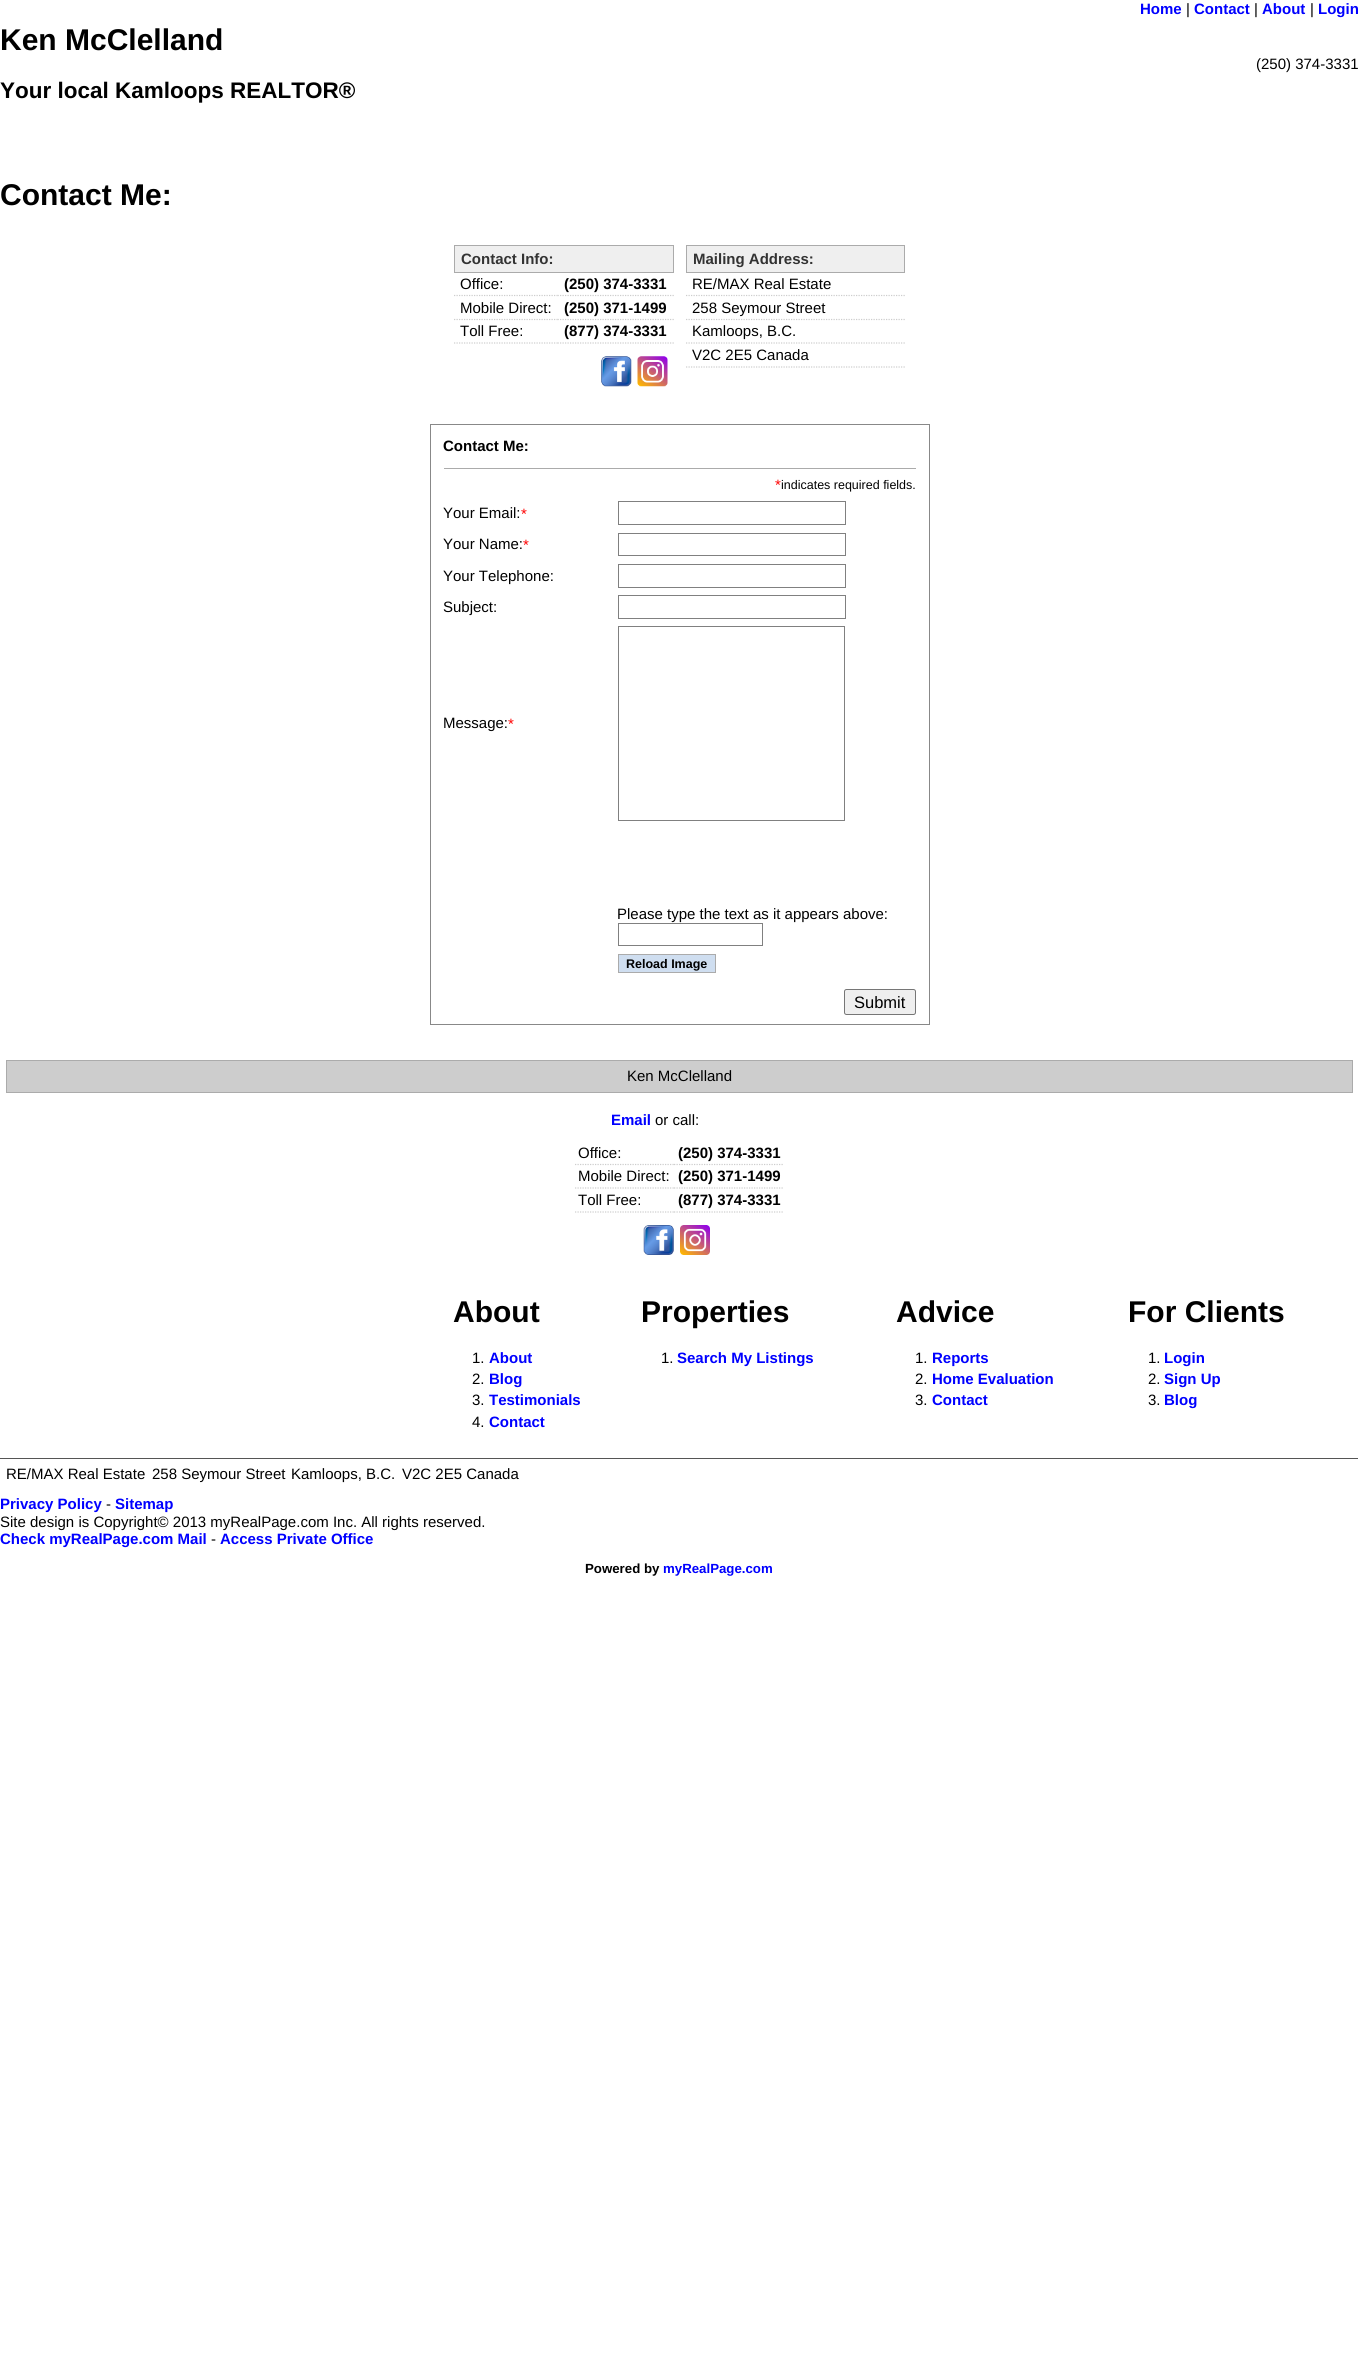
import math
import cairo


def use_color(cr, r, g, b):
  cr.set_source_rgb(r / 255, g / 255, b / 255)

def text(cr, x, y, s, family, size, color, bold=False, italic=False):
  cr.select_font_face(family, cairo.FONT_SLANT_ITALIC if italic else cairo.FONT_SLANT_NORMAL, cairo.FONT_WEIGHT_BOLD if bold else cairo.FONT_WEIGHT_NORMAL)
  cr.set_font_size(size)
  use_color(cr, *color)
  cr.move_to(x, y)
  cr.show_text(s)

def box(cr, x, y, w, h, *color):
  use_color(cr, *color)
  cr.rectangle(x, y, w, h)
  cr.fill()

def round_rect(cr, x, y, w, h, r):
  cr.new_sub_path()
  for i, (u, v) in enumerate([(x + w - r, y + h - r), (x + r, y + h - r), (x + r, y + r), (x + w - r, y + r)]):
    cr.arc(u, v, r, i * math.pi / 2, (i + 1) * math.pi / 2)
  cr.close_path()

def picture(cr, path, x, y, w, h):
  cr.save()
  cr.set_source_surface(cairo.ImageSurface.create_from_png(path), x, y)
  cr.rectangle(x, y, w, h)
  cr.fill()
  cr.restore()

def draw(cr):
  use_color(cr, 255, 255, 255)
  cr.paint()
  use_color(cr, 239, 239, 239)
  cr.rectangle(454.5, 245.5, 219, 27)
  cr.fill_preserve()
  use_color(cr, 171, 171, 171)
  cr.set_line_width(1)
  cr.stroke()
  cr.new_path()
  cr.move_to(454, 295.5)
  cr.line_to(557.5, 295.5)
  use_color(cr, 205, 205, 205)
  cr.set_line_width(1.2)
  cr.set_dash([1.25, 1.25])
  cr.stroke()
  cr.new_path()
  cr.move_to(557.5, 295.5)
  cr.line_to(674, 295.5)
  cr.stroke()
  cr.new_path()
  cr.move_to(454, 319.5)
  cr.line_to(557.5, 319.5)
  cr.stroke()
  cr.new_path()
  cr.move_to(557.5, 319.5)
  cr.line_to(674, 319.5)
  cr.stroke()
  cr.new_path()
  cr.move_to(454, 343)
  cr.line_to(557.5, 343)
  cr.stroke()
  cr.new_path()
  cr.move_to(557.5, 343)
  cr.line_to(674, 343)
  cr.stroke()
  picture(cr, "img_01.png", 601, 356, 31, 31)
  picture(cr, "img_02.png", 637, 356, 31, 31)
  use_color(cr, 239, 239, 239)
  cr.rectangle(686.5, 245.5, 218, 27)
  cr.fill_preserve()
  use_color(cr, 171, 171, 171)
  cr.set_line_width(1)
  cr.set_dash([])
  cr.stroke()
  cr.new_path()
  cr.move_to(686, 295.5)
  cr.line_to(905, 295.5)
  use_color(cr, 205, 205, 205)
  cr.set_line_width(1.2)
  cr.set_dash([1.25, 1.25])
  cr.stroke()
  cr.new_path()
  cr.move_to(686, 319.5)
  cr.line_to(905, 319.5)
  cr.stroke()
  cr.new_path()
  cr.move_to(686, 343)
  cr.line_to(905, 343)
  cr.stroke()
  cr.new_path()
  cr.move_to(686, 367)
  cr.line_to(905, 367)
  cr.stroke()
  cr.rectangle(430.5, 424.5, 499, 600)
  use_color(cr, 136, 136, 136)
  cr.set_line_width(1)
  cr.set_dash([])
  cr.stroke()
  box(cr, 444, 468, 472, 1, 171, 171, 171)
  cr.rectangle(618.5, 501.5, 227, 23)
  use_color(cr, 128, 128, 128)
  cr.stroke()
  cr.rectangle(618.5, 533.5, 227, 22)
  cr.stroke()
  cr.rectangle(618.5, 564.5, 227, 23)
  cr.stroke()
  cr.rectangle(618.5, 595.5, 227, 23)
  cr.stroke()
  cr.rectangle(618.5, 626.5, 226, 194)
  cr.stroke()
  cr.rectangle(618.5, 923.5, 144, 22)
  cr.stroke()
  use_color(cr, 207, 222, 240)
  cr.rectangle(618.5, 954.5, 97, 18)
  cr.fill_preserve()
  use_color(cr, 171, 171, 171)
  cr.stroke()
  use_color(cr, 239, 239, 239)
  round_rect(cr, 844.5, 989.5, 71, 25, 2)
  cr.fill_preserve()
  use_color(cr, 118, 118, 118)
  cr.stroke()
  use_color(cr, 205, 205, 205)
  cr.rectangle(6.5, 1060.5, 1346, 32)
  cr.fill_preserve()
  use_color(cr, 171, 171, 171)
  cr.stroke()
  cr.new_path()
  cr.move_to(575, 1164.5)
  cr.line_to(674, 1164.5)
  use_color(cr, 205, 205, 205)
  cr.set_line_width(1.2)
  cr.set_dash([1.25, 1.25])
  cr.stroke()
  cr.new_path()
  cr.move_to(674, 1164.5)
  cr.line_to(784, 1164.5)
  cr.stroke()
  cr.new_path()
  cr.move_to(575, 1188)
  cr.line_to(674, 1188)
  cr.stroke()
  cr.new_path()
  cr.move_to(674, 1188)
  cr.line_to(784, 1188)
  cr.stroke()
  cr.new_path()
  cr.move_to(575, 1212)
  cr.line_to(674, 1212)
  cr.stroke()
  cr.new_path()
  cr.move_to(674, 1212)
  cr.line_to(784, 1212)
  cr.stroke()
  picture(cr, "img_03.png", 643, 1225, 31, 30)
  picture(cr, "img_04.png", 680, 1225, 30, 30)
  box(cr, 0, 1458, 1358, 1, 85, 85, 85)
  text(cr, 0, 50, "Ken McClelland", "Liberation Sans", 30, (0, 0, 0), bold=True)
  text(cr, 0, 98, "Your local Kamloops REALTOR®", "Liberation Sans", 22.5, (0, 0, 0), bold=True)
  text(cr, 1140, 14, "Home", "Liberation Sans", 15, (0, 0, 255), bold=True)
  text(cr, 1186, 14, "|", "Liberation Sans", 15, (0, 0, 0))
  text(cr, 1194, 14, "Contact", "Liberation Sans", 15, (0, 0, 255), bold=True)
  text(cr, 1254, 14, "|", "Liberation Sans", 15, (0, 0, 0))
  text(cr, 1262, 14, "About", "Liberation Sans", 15, (0, 0, 255), bold=True)
  text(cr, 1310, 14, "|", "Liberation Sans", 15, (0, 0, 0))
  text(cr, 1318, 14, "Login", "Liberation Sans", 15, (0, 0, 255), bold=True)
  text(cr, 1256, 69, "(250) 374-3331", "Liberation Sans", 15, (0, 0, 0))
  text(cr, 0, 205, "Contact Me:", "Liberation Sans", 30, (0, 0, 0), bold=True)
  text(cr, 461, 264, "Contact Info:", "Liberation Sans", 15, (51, 51, 51), bold=True)
  text(cr, 460, 289, "Office:", "Liberation Sans", 15, (0, 0, 0))
  text(cr, 564, 289, "(250) 374-3331", "Liberation Sans", 15, (0, 0, 0), bold=True)
  text(cr, 460, 313, "Mobile Direct:", "Liberation Sans", 15, (0, 0, 0))
  text(cr, 564, 313, "(250) 371-1499", "Liberation Sans", 15, (0, 0, 0), bold=True)
  text(cr, 460, 336, "Toll Free:", "Liberation Sans", 15, (0, 0, 0))
  text(cr, 564, 336, "(877) 374-3331", "Liberation Sans", 15, (0, 0, 0), bold=True)
  text(cr, 693, 264, "Mailing Address:", "Liberation Sans", 15, (51, 51, 51), bold=True)
  text(cr, 692, 289, "RE/MAX Real Estate", "Liberation Sans", 15, (0, 0, 0))
  text(cr, 692, 313, "258 Seymour Street", "Liberation Sans", 15, (0, 0, 0))
  text(cr, 692, 336, "Kamloops, B.C.", "Liberation Sans", 15, (0, 0, 0))
  text(cr, 692, 360, "V2C 2E5 Canada", "Liberation Sans", 15, (0, 0, 0))
  text(cr, 443, 451, "Contact Me:", "Liberation Sans", 15, (0, 0, 0), bold=True)
  text(cr, 775, 490, "*", "Liberation Sans", 15, (255, 0, 0))
  text(cr, 781, 489, "indicates required fields.", "Liberation Sans", 12.5, (0, 0, 0))
  text(cr, 443, 518, "Your Email:", "Liberation Sans", 15, (0, 0, 0))
  text(cr, 521, 519, "*", "Liberation Sans", 15, (255, 0, 0))
  text(cr, 443, 549, "Your Name:", "Liberation Sans", 15, (0, 0, 0))
  text(cr, 523, 550, "*", "Liberation Sans", 15, (255, 0, 0))
  text(cr, 443, 581, "Your Telephone:", "Liberation Sans", 15, (0, 0, 0))
  text(cr, 443, 612, "Subject:", "Liberation Sans", 15, (0, 0, 0))
  text(cr, 443, 728, "Message:", "Liberation Sans", 15, (0, 0, 0))
  text(cr, 508, 729, "*", "Liberation Sans", 15, (255, 0, 0))
  text(cr, 617, 919, "Please type the text as it appears above:", "Liberation Sans", 15, (0, 0, 0))
  text(cr, 626, 968, "Reload Image", "Liberation Sans", 12.5, (0, 0, 0), bold=True)
  text(cr, 854, 1008, "Submit", "Liberation Sans", 16.5, (0, 0, 0))
  text(cr, 627, 1081, "Ken McClelland", "Liberation Sans", 15, (0, 0, 0))
  text(cr, 611, 1125, "Email", "Liberation Sans", 15, (0, 0, 255), bold=True)
  text(cr, 655, 1125, "or call:", "Liberation Sans", 15, (0, 0, 0))
  text(cr, 578, 1158, "Office:", "Liberation Sans", 15, (0, 0, 0))
  text(cr, 678, 1158, "(250) 374-3331", "Liberation Sans", 15, (0, 0, 0), bold=True)
  text(cr, 578, 1181, "Mobile Direct:", "Liberation Sans", 15, (0, 0, 0))
  text(cr, 678, 1181, "(250) 371-1499", "Liberation Sans", 15, (0, 0, 0), bold=True)
  text(cr, 578, 1205, "Toll Free:", "Liberation Sans", 15, (0, 0, 0))
  text(cr, 678, 1205, "(877) 374-3331", "Liberation Sans", 15, (0, 0, 0), bold=True)
  text(cr, 453, 1322, "About", "Liberation Sans", 30, (0, 0, 0), bold=True)
  text(cr, 472, 1363, "1.", "Liberation Sans", 15, (0, 0, 0))
  text(cr, 489, 1363, "About", "Liberation Sans", 15, (0, 0, 255), bold=True)
  text(cr, 472, 1384, "2.", "Liberation Sans", 15, (0, 0, 0))
  text(cr, 489, 1384, "Blog", "Liberation Sans", 15, (0, 0, 255), bold=True)
  text(cr, 472, 1405, "3.", "Liberation Sans", 15, (0, 0, 0))
  text(cr, 489, 1405, "Testimonials", "Liberation Sans", 15, (0, 0, 255), bold=True)
  text(cr, 472, 1427, "4.", "Liberation Sans", 15, (0, 0, 0))
  text(cr, 489, 1427, "Contact", "Liberation Sans", 15, (0, 0, 255), bold=True)
  text(cr, 641, 1322, "Properties", "Liberation Sans", 30, (0, 0, 0), bold=True)
  text(cr, 661, 1363, "1.", "Liberation Sans", 15, (0, 0, 0))
  text(cr, 677, 1363, "Search My Listings", "Liberation Sans", 15, (0, 0, 255), bold=True)
  text(cr, 896, 1322, "Advice", "Liberation Sans", 30, (0, 0, 0), bold=True)
  text(cr, 915, 1363, "1.", "Liberation Sans", 15, (0, 0, 0))
  text(cr, 932, 1363, "Reports", "Liberation Sans", 15, (0, 0, 255), bold=True)
  text(cr, 915, 1384, "2.", "Liberation Sans", 15, (0, 0, 0))
  text(cr, 932, 1384, "Home Evaluation", "Liberation Sans", 15, (0, 0, 255), bold=True)
  text(cr, 915, 1405, "3.", "Liberation Sans", 15, (0, 0, 0))
  text(cr, 932, 1405, "Contact", "Liberation Sans", 15, (0, 0, 255), bold=True)
  text(cr, 1128, 1322, "For Clients", "Liberation Sans", 30, (0, 0, 0), bold=True)
  text(cr, 1148, 1363, "1.", "Liberation Sans", 15, (0, 0, 0))
  text(cr, 1164, 1363, "Login", "Liberation Sans", 15, (0, 0, 255), bold=True)
  text(cr, 1148, 1384, "2.", "Liberation Sans", 15, (0, 0, 0))
  text(cr, 1164, 1384, "Sign Up", "Liberation Sans", 15, (0, 0, 255), bold=True)
  text(cr, 1148, 1405, "3.", "Liberation Sans", 15, (0, 0, 0))
  text(cr, 1164, 1405, "Blog", "Liberation Sans", 15, (0, 0, 255), bold=True)
  text(cr, 6, 1479, "RE/MAX Real Estate", "Liberation Sans", 15, (0, 0, 0))
  text(cr, 152, 1479, "258 Seymour Street", "Liberation Sans", 15, (0, 0, 0))
  text(cr, 291, 1479, "Kamloops, B.C.", "Liberation Sans", 15, (0, 0, 0))
  text(cr, 402, 1479, "V2C 2E5 Canada", "Liberation Sans", 15, (0, 0, 0))
  text(cr, 0, 1509, "Privacy Policy", "Liberation Sans", 15, (0, 0, 255), bold=True)
  text(cr, 106, 1509, "-", "Liberation Sans", 15, (0, 0, 0))
  text(cr, 115, 1509, "Sitemap", "Liberation Sans", 15, (0, 0, 255), bold=True)
  text(cr, 0, 1527, "Site design is Copyright© 2013 myRealPage.com Inc. All rights reserved.", "Liberation Sans", 15, (0, 0, 0))
  text(cr, 0, 1544, "Check myRealPage.com Mail", "Liberation Sans", 15, (0, 0, 255), bold=True)
  text(cr, 211, 1544, "-", "Liberation Sans", 15, (0, 0, 0))
  text(cr, 220, 1544, "Access Private Office", "Liberation Sans", 15, (0, 0, 255), bold=True)
  text(cr, 585, 1573, "Powered by", "Liberation Sans", 13.25, (0, 0, 0), bold=True)
  text(cr, 663, 1573, "myRealPage.com", "Liberation Sans", 13.25, (0, 0, 255), bold=True)


surface = cairo.ImageSurface(cairo.FORMAT_RGB24, 1358, 2358)
cr = cairo.Context(surface)
options = cairo.FontOptions()
options.set_hint_metrics(cairo.HINT_METRICS_OFF)
options.set_hint_style(cairo.HINT_STYLE_NONE)
cr.set_font_options(options)
cr.set_miter_limit(4)
draw(cr)
surface.write_to_png("out.png")
